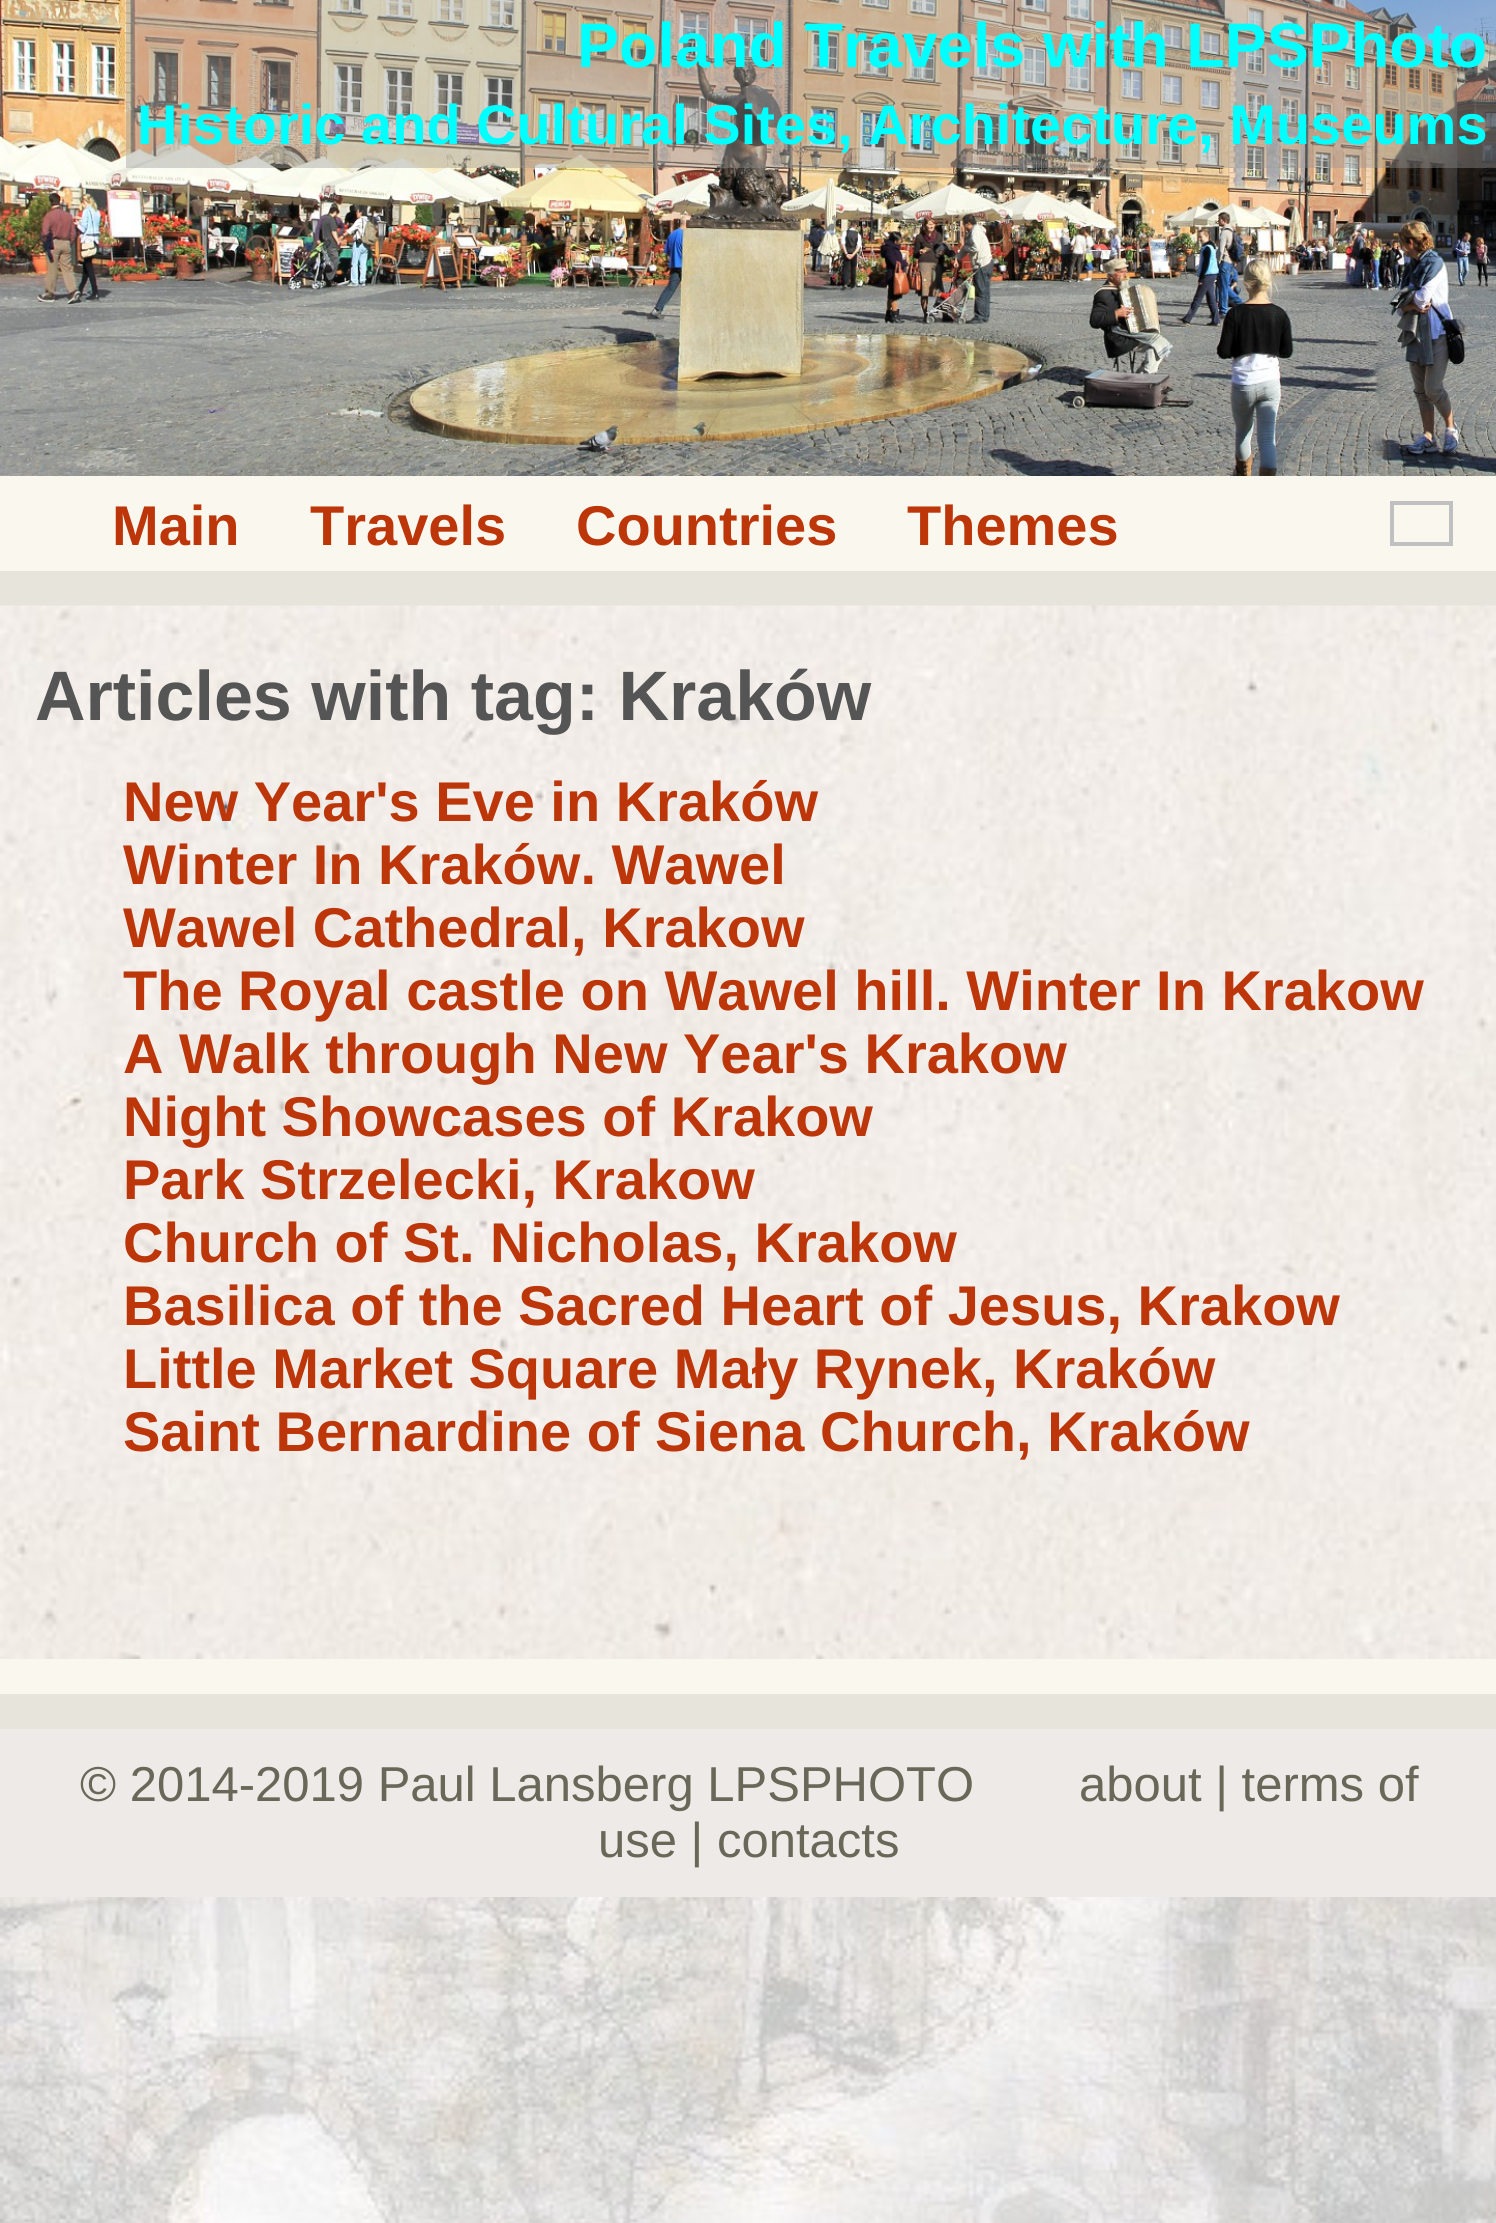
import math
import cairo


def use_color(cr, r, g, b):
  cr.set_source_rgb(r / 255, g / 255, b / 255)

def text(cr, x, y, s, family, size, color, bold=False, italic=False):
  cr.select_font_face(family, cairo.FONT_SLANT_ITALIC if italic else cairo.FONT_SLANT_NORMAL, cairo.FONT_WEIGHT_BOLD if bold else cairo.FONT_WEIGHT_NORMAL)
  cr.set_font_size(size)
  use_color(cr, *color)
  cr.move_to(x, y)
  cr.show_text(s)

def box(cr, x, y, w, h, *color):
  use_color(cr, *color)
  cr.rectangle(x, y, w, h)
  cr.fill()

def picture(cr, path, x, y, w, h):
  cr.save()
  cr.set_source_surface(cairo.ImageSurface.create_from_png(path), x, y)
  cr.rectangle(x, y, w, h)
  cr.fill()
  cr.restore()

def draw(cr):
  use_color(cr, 255, 255, 255)
  cr.paint()
  picture(cr, "img_01.png", 0, 1897, 1496, 326)
  box(cr, 0, 571, 1496, 1158, 230, 228, 219)
  box(cr, 0, 476, 1496, 95, 250, 248, 238)
  picture(cr, "img_02.png", 0, 0, 1496, 476)
  cr.set_source_rgba(0.588, 0.588, 0.588, 0.4)
  cr.rectangle(126, 0, 1370, 168)
  cr.fill()
  cr.rectangle(1392, 503, 59, 41)
  use_color(cr, 192, 192, 192)
  cr.set_line_width(4)
  cr.stroke()
  box(cr, 0, 1659, 1496, 35, 250, 248, 238)
  picture(cr, "img_03.png", 0, 605, 1496, 1054)
  box(cr, 0, 1729, 1496, 168, 238, 234, 231)
  text(cr, 577, 67, "Poland Travels with LPSPhoto", "Liberation Sans", 63, (0, 255, 255), bold=True)
  text(cr, 137, 144, "Historic and Cultural Sites, Architecture, Museums", "Liberation Sans", 56, (0, 255, 255), bold=True)
  text(cr, 112, 545, "Main", "Liberation Sans", 56, (188, 54, 10), bold=True)
  text(cr, 310, 545, "Travels", "Liberation Sans", 56, (188, 54, 10), bold=True)
  text(cr, 576, 545, "Countries", "Liberation Sans", 56, (188, 54, 10), bold=True)
  text(cr, 907, 545, "Themes", "Liberation Sans", 56, (188, 54, 10), bold=True)
  text(cr, 35, 720, "Articles with tag: Kraków", "Liberation Sans", 70, (85, 85, 85), bold=True)
  text(cr, 123, 821, "New Year's Eve in Kraków", "Liberation Sans", 56, (188, 54, 10), bold=True)
  text(cr, 123, 884, "Winter In Kraków. Wawel", "Liberation Sans", 56, (188, 54, 10), bold=True)
  text(cr, 123, 947, "Wawel Cathedral, Krakow", "Liberation Sans", 56, (188, 54, 10), bold=True)
  text(cr, 123, 1010, "The Royal castle on Wawel hill. Winter In Krakow", "Liberation Sans", 56, (188, 54, 10), bold=True)
  text(cr, 123, 1073, "A Walk through New Year's Krakow", "Liberation Sans", 56, (188, 54, 10), bold=True)
  text(cr, 123, 1136, "Night Showcases of Krakow", "Liberation Sans", 56, (188, 54, 10), bold=True)
  text(cr, 123, 1199, "Park Strzelecki, Krakow", "Liberation Sans", 56, (188, 54, 10), bold=True)
  text(cr, 123, 1262, "Church of St. Nicholas, Krakow", "Liberation Sans", 56, (188, 54, 10), bold=True)
  text(cr, 123, 1325, "Basilica of the Sacred Heart of Jesus, Krakow", "Liberation Sans", 56, (188, 54, 10), bold=True)
  text(cr, 123, 1388, "Little Market Square Mały Rynek, Kraków", "Liberation Sans", 56, (188, 54, 10), bold=True)
  text(cr, 123, 1451, "Saint Bernardine of Siena Church, Kraków", "Liberation Sans", 56, (188, 54, 10), bold=True)
  text(cr, 80, 1801, "© 2014-2019 Paul Lansberg LPSPHOTO", "Liberation Sans", 49, (104, 103, 88))
  text(cr, 1079, 1801, "about | terms of", "Liberation Sans", 49, (104, 103, 88))
  text(cr, 598, 1857, "use | contacts", "Liberation Sans", 49, (104, 103, 88))


surface = cairo.ImageSurface(cairo.FORMAT_RGB24, 1496, 2223)
cr = cairo.Context(surface)
options = cairo.FontOptions()
options.set_hint_metrics(cairo.HINT_METRICS_OFF)
options.set_hint_style(cairo.HINT_STYLE_NONE)
cr.set_font_options(options)
cr.set_miter_limit(4)
draw(cr)
surface.write_to_png("out.png")
